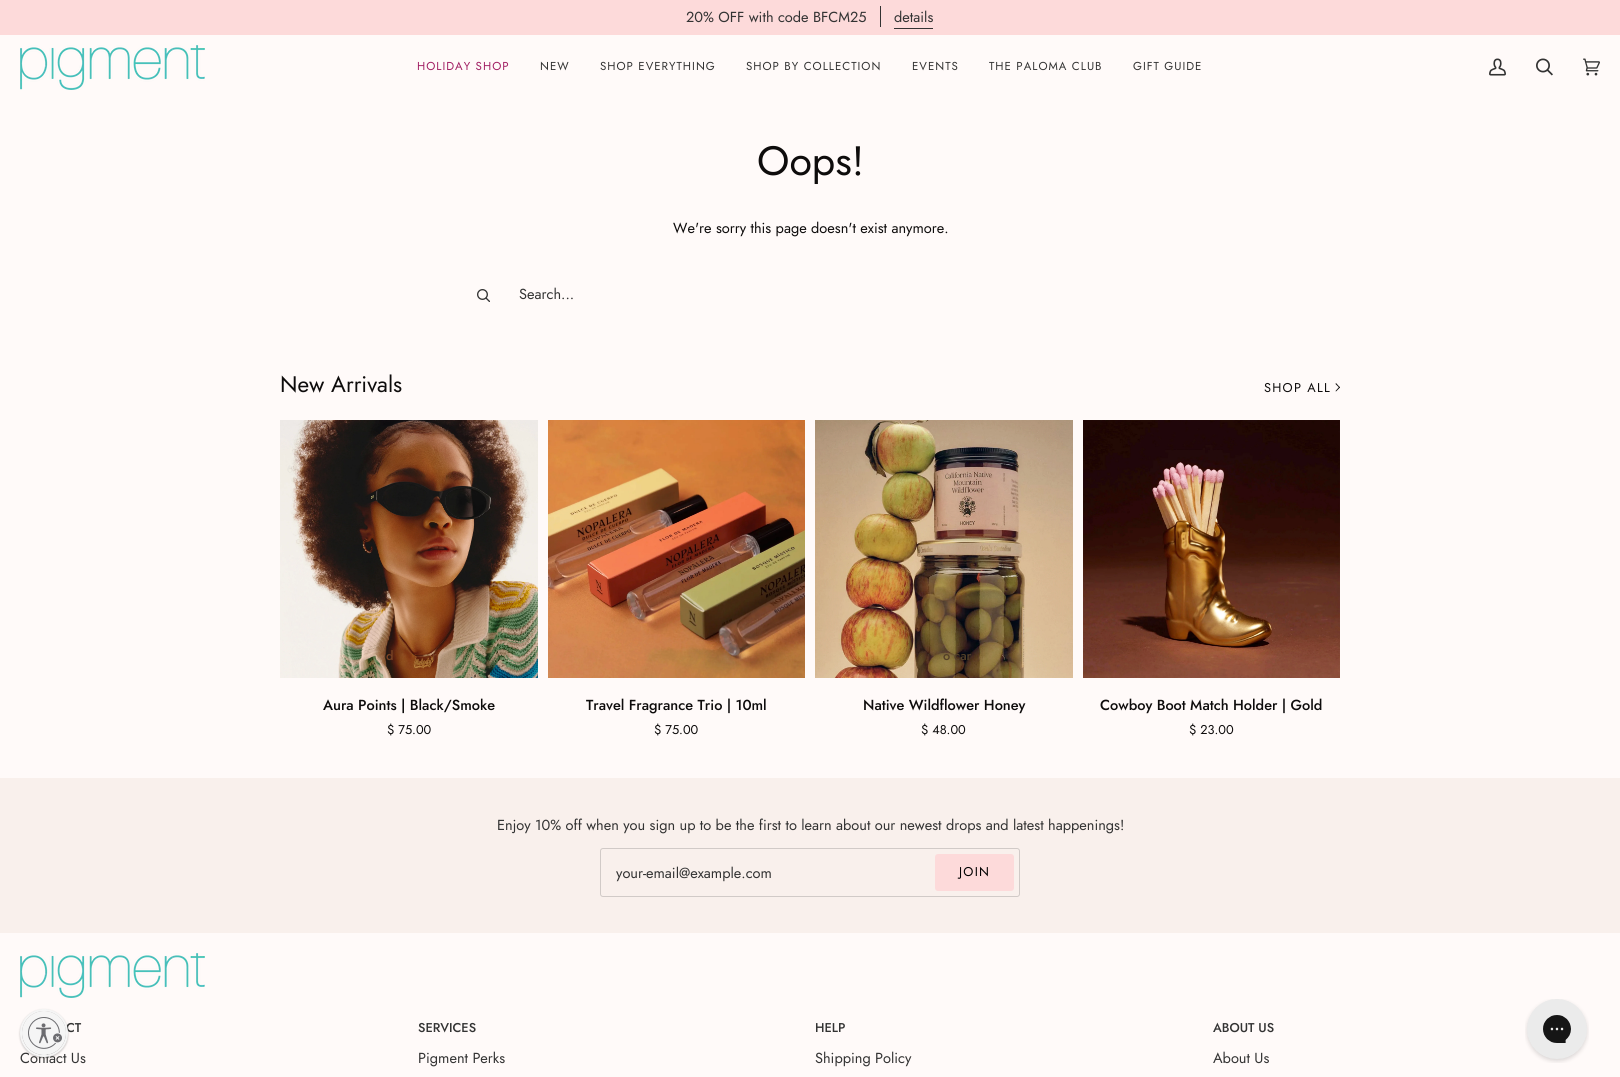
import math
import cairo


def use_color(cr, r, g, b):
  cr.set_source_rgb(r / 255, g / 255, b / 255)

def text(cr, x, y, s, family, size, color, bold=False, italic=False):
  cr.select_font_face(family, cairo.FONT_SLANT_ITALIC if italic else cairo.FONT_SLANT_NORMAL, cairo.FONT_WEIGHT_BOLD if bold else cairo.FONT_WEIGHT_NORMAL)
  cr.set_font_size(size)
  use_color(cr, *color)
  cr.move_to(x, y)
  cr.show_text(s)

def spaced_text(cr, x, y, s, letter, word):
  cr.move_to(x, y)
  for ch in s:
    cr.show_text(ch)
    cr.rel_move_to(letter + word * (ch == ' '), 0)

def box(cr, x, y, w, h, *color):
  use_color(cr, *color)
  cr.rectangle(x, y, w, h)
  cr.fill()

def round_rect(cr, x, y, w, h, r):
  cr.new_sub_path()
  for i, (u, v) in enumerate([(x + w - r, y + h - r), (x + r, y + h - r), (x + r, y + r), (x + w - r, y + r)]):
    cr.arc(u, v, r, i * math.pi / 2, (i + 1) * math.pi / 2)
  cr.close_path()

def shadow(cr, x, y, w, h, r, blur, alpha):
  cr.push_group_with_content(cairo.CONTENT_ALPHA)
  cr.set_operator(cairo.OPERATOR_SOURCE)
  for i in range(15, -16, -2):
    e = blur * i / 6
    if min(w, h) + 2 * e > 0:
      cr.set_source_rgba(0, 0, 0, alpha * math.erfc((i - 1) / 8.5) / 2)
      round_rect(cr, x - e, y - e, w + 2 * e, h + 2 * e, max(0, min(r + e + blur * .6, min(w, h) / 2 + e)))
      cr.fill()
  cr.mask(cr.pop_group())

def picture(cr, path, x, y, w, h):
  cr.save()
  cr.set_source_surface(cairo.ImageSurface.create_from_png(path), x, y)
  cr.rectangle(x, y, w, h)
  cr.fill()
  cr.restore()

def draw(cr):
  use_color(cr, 255, 250, 249)
  cr.paint()
  box(cr, 0, 0, 1620, 35, 253, 218, 218)
  box(cr, 880, 6, 1, 21, 51, 51, 51)
  box(cr, 894, 28, 39, 1, 51, 51, 51)
  picture(cr, "img_01.png", 20, 45, 185, 45)
  picture(cr, "img_02.png", 1489, 58, 17, 18)
  picture(cr, "img_03.png", 1536, 58, 17, 18)
  picture(cr, "img_04.png", 1583, 58, 17, 18)
  picture(cr, "img_05.png", 477, 289, 13, 13)
  use_color(cr, 14, 12, 12)
  cr.new_path()
  cr.move_to(1336, 383)
  cr.line_to(1340, 387.5)
  cr.line_to(1339.5, 388)
  cr.line_to(1335.5, 384)
  cr.close_path()
  cr.fill()
  cr.new_path()
  cr.move_to(1339.5, 386.5)
  cr.line_to(1340, 387.5)
  cr.line_to(1336, 391.5)
  cr.line_to(1335.5, 391)
  cr.close_path()
  cr.fill()
  picture(cr, "img_06.png", 280, 420, 258, 258)
  picture(cr, "img_07.png", 548, 420, 257, 258)
  picture(cr, "img_08.png", 815, 420, 258, 258)
  picture(cr, "img_09.png", 1083, 420, 257, 258)
  box(cr, 0, 778, 1620, 155, 249, 240, 236)
  round_rect(cr, 600.5, 848.5, 419, 48, 2.5)
  use_color(cr, 209, 202, 199)
  cr.set_line_width(1)
  cr.stroke()
  use_color(cr, 253, 218, 218)
  round_rect(cr, 935, 854, 79, 37, 3)
  cr.fill()
  use_color(cr, 0, 0, 0)
  shadow(cr, 20, 1010, 48, 48, 24, 1, 0.24)
  picture(cr, "img_11.png", 1525, 999, 64, 64)
  picture(cr, "img_01.png", 20, 953, 185, 45)
  text(cr, 686, 22, "20% OFF with code BFCM25", "Jost", 14.55, (51, 51, 51))
  text(cr, 894, 22, "details", "Jost", 14.55, (51, 51, 51))
  cr.set_font_size(11.5)
  use_color(cr, 161, 30, 99)
  spaced_text(cr, 417, 70, "HOLIDAY SHOP", 1, 0)
  use_color(cr, 51, 51, 51)
  spaced_text(cr, 540, 70, "NEW", 1, 0)
  spaced_text(cr, 600, 70, "SHOP EVERYTHING", 1, 0)
  spaced_text(cr, 746, 70, "SHOP BY COLLECTION", 1, 0)
  spaced_text(cr, 912, 70, "EVENTS", 1, 0)
  spaced_text(cr, 989, 70, "THE PALOMA CLUB", 1, 0)
  spaced_text(cr, 1133, 70, "GIFT GUIDE", 1, 0)
  text(cr, 757, 175, "Oops!", "Jost", 41, (14, 12, 12))
  text(cr, 673, 233, "We're sorry this page doesn't exist anymore.", "Jost", 14.55, (14, 12, 12))
  text(cr, 519, 299, "Search...", "Jost", 14.55, (51, 51, 51))
  text(cr, 280, 392, "New Arrivals", "Jost", 22.5, (14, 12, 12))
  cr.set_font_size(12.75)
  spaced_text(cr, 1264, 392, "SHOP ALL", 1.25, 0)
  text(cr, 386, 660, "d", "Jost Medium", 12.75, (120, 66, 36))
  text(cr, 432, 660, "r", "Jost Medium", 12.75, (120, 66, 36))
  text(cr, 323, 710, "Aura Points | Black/Smoke", "Jost Medium", 14.55, (14, 12, 12))
  text(cr, 387, 734, "$ 75.00", "Jost", 12.75, (14, 12, 12))
  text(cr, 586, 710, "Travel Fragrance Trio | 10ml", "Jost Medium", 14.55, (14, 12, 12))
  text(cr, 654, 734, "$ 75.00", "Jost", 12.75, (14, 12, 12))
  text(cr, 943, 660, "o car", "Jost Medium", 12.75, (84, 64, 41))
  text(cr, 863, 710, "Native Wildflower Honey", "Jost Medium", 14.55, (14, 12, 12))
  text(cr, 921, 734, "$ 48.00", "Jost", 12.75, (14, 12, 12))
  text(cr, 1100, 710, "Cowboy Boot Match Holder | Gold", "Jost Medium", 14.55, (14, 12, 12))
  text(cr, 1189, 734, "$ 23.00", "Jost", 12.75, (14, 12, 12))
  text(cr, 497, 830, "Enjoy 10% off when you sign up to be the first to learn about our newest drops and latest happenings!", "Jost", 14.55, (51, 51, 51))
  text(cr, 616, 878, "your-email@example.com", "Jost", 14.55, (51, 51, 51))
  cr.set_font_size(12.75)
  use_color(cr, 0, 0, 0)
  spaced_text(cr, 959, 876, "JOIN", 1.25, 0)
  text(cr, 66, 1032, "CT", "Jost Medium", 12.75, (51, 51, 51))
  text(cr, 20, 1063, "Contact Us", "Jost", 14.55, (51, 51, 51))
  cr.new_path()
  cr.arc(44, 1033, 23, 0, 2 * math.pi)
  use_color(cr, 245, 245, 245)
  cr.set_line_width(2)
  cr.stroke()
  cr.save()
  round_rect(cr, 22, 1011, 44, 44, 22)
  cr.clip()
  use_color(cr, 0, 0, 0)
  shadow(cr, 22, 1012, 44, 44, 22, 1, 0.24)
  cr.restore()
  cr.arc(44, 1033, 22, 0, 2 * math.pi)
  cr.fill()
  picture(cr, "img_10.png", 28, 1017, 34, 32)
  text(cr, 418, 1032, "SERVICES", "Jost Medium", 12.75, (51, 51, 51))
  text(cr, 418, 1063, "Pigment Perks", "Jost", 14.55, (51, 51, 51))
  text(cr, 815, 1032, "HELP", "Jost Medium", 12.75, (51, 51, 51))
  text(cr, 815, 1063, "Shipping Policy", "Jost", 14.55, (51, 51, 51))
  text(cr, 1213, 1032, "ABOUT US", "Jost Medium", 12.75, (51, 51, 51))
  text(cr, 1213, 1063, "About Us", "Jost", 14.55, (51, 51, 51))


surface = cairo.ImageSurface(cairo.FORMAT_RGB24, 1620, 1077)
cr = cairo.Context(surface)
options = cairo.FontOptions()
options.set_hint_metrics(cairo.HINT_METRICS_OFF)
options.set_hint_style(cairo.HINT_STYLE_NONE)
cr.set_font_options(options)
cr.set_miter_limit(4)
draw(cr)
surface.write_to_png("out.png")
